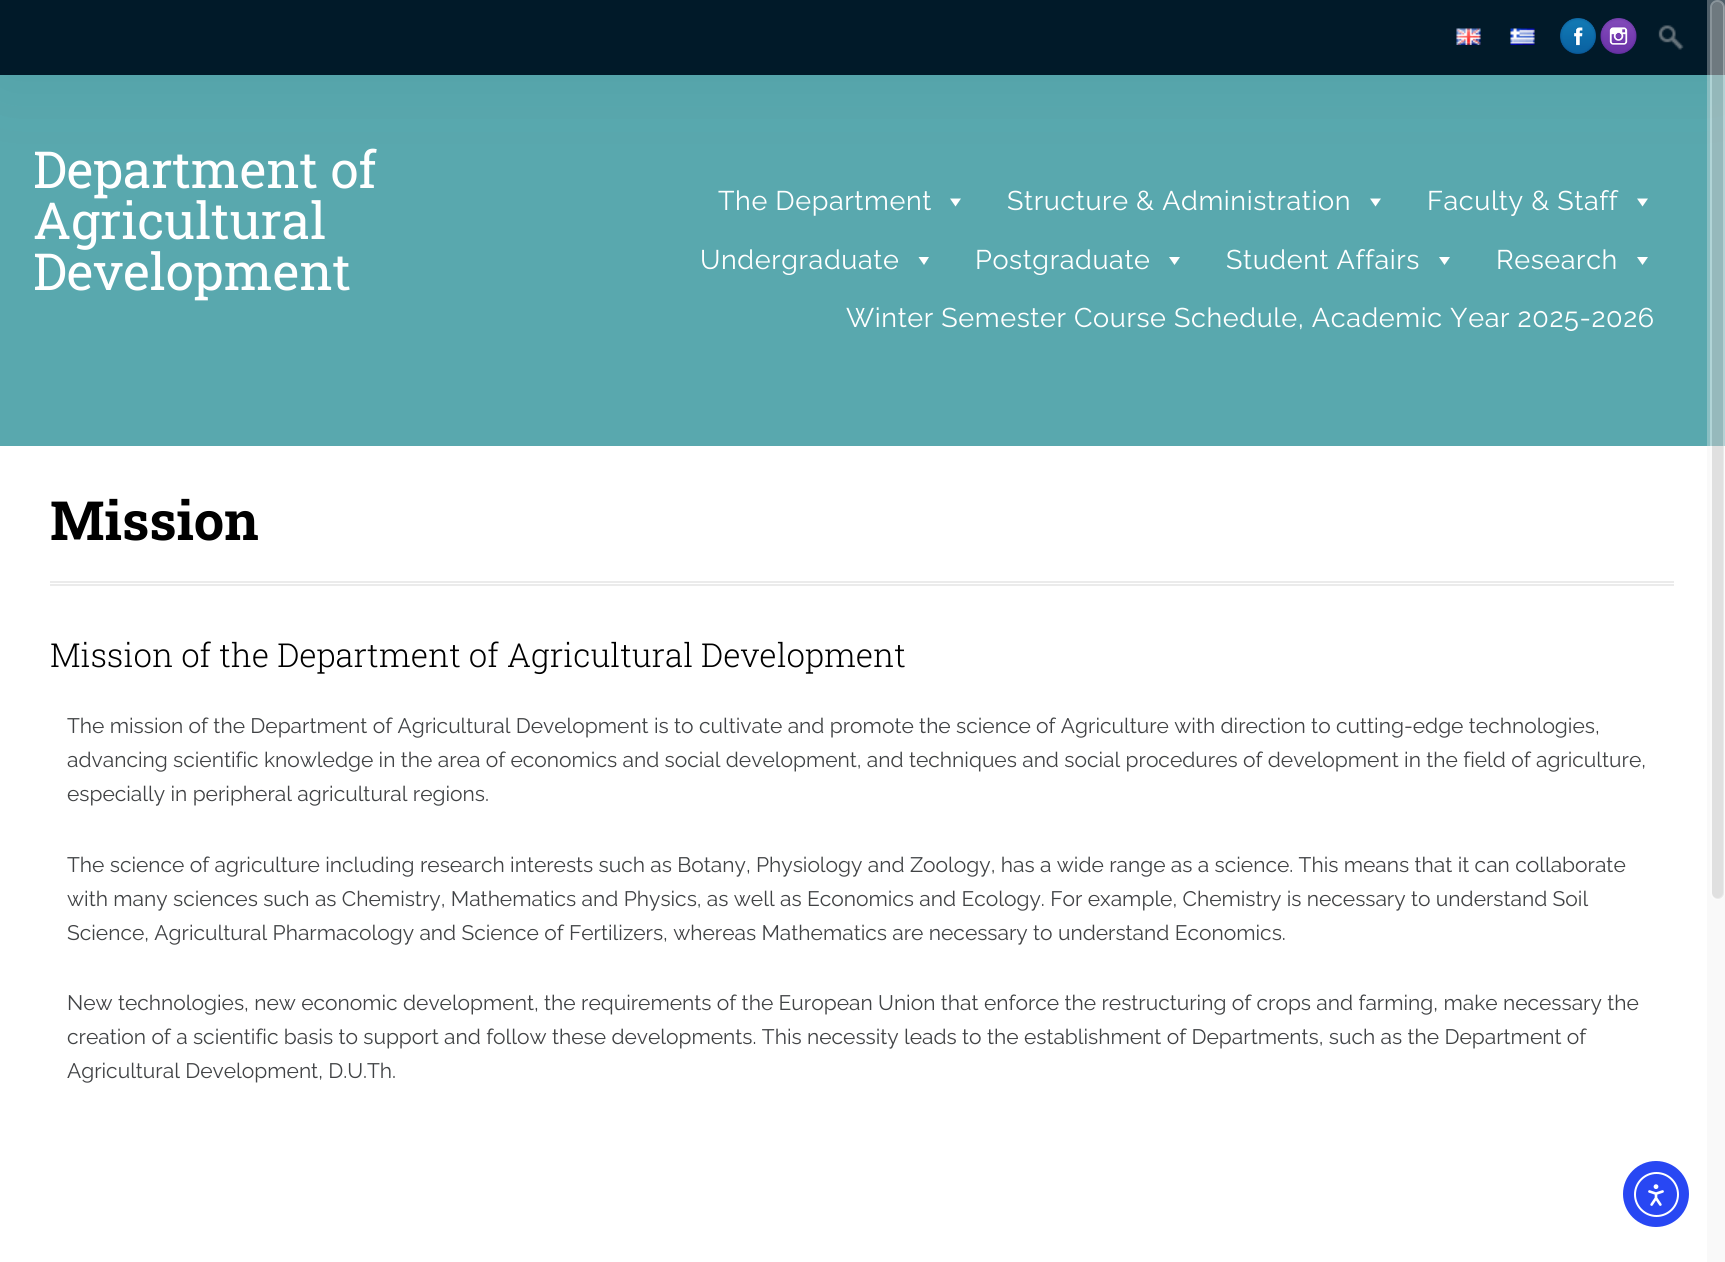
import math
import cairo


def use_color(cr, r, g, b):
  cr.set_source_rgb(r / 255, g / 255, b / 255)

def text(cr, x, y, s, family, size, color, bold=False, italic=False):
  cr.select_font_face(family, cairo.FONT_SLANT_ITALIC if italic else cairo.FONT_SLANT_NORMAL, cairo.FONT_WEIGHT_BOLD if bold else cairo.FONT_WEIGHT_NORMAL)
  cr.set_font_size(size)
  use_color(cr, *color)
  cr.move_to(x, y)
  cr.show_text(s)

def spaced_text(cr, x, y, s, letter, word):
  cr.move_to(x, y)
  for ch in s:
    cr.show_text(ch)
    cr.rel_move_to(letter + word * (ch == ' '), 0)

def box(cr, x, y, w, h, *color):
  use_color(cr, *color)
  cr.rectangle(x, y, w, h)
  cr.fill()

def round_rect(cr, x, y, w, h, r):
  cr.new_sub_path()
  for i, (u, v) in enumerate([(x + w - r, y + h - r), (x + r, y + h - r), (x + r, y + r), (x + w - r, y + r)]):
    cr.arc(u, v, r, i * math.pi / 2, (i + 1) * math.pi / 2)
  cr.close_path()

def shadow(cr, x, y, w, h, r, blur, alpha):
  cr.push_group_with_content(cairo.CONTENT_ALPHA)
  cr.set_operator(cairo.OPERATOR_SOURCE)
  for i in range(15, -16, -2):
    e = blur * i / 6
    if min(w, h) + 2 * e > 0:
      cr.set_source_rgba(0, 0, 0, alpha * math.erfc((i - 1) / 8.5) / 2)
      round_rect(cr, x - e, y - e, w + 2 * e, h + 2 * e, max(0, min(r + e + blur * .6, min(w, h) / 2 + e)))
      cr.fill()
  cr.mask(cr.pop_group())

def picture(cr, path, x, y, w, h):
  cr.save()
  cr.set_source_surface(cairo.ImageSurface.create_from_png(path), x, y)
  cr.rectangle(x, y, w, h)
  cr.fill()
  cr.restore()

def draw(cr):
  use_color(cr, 255, 255, 255)
  cr.paint()
  box(cr, 0, 75, 1725, 371, 89, 168, 174)
  use_color(cr, 0, 79, 85)
  shadow(cr, 0, 0, 1725, 75, 0, 37.5, 0.1)
  box(cr, 0, 0, 1725, 75, 1, 26, 41)
  picture(cr, "img_01.png", 1456, 28, 25, 17)
  picture(cr, "img_02.png", 1510, 28, 25, 17)
  picture(cr, "img_03.png", 1560, 18, 36, 36)
  picture(cr, "img_04.png", 1600, 18, 37, 36)
  picture(cr, "img_05.png", 1658, 25, 26, 25)
  use_color(cr, 255, 255, 255)
  cr.new_path()
  cr.move_to(961, 198.5)
  cr.line_to(955.5, 206.5)
  cr.line_to(950, 198.5)
  cr.close_path()
  cr.fill()
  cr.new_path()
  cr.move_to(1381, 198.5)
  cr.line_to(1375.5, 206.5)
  cr.line_to(1370, 198.5)
  cr.close_path()
  cr.fill()
  cr.new_path()
  cr.move_to(1648, 198.5)
  cr.line_to(1642.5, 206.5)
  cr.line_to(1637, 198.5)
  cr.close_path()
  cr.fill()
  cr.new_path()
  cr.move_to(929, 257)
  cr.line_to(924, 265)
  cr.line_to(918.5, 257)
  cr.close_path()
  cr.fill()
  cr.new_path()
  cr.move_to(1180, 257)
  cr.line_to(1174.5, 265)
  cr.line_to(1169, 257)
  cr.close_path()
  cr.fill()
  cr.new_path()
  cr.move_to(1450, 257)
  cr.line_to(1444.5, 265)
  cr.line_to(1439, 257)
  cr.close_path()
  cr.fill()
  cr.new_path()
  cr.move_to(1648, 257)
  cr.line_to(1642.5, 265)
  cr.line_to(1637, 257)
  cr.close_path()
  cr.fill()
  box(cr, 50, 581, 1624, 2, 235, 235, 235)
  box(cr, 50, 584, 1624, 2, 235, 235, 235)
  cr.set_source_rgba(0.933, 0.933, 0.933, 0.33)
  cr.rectangle(1707, 0, 18, 1262)
  cr.fill()
  cr.set_source_rgba(0.686, 0.686, 0.686, 0.33)
  round_rect(cr, 1712, 2, 12, 897, 6)
  cr.fill()
  round_rect(cr, 1711, 1, 13, 898, 6.5)
  cr.set_source_rgba(1, 1, 1, 0.33)
  cr.stroke()
  use_color(cr, 40, 71, 243)
  cr.arc(1656, 1194, 33, 0, 2 * math.pi)
  cr.fill()
  cr.arc(1656.5, 1194.5, 21.5, 0, 2 * math.pi)
  use_color(cr, 255, 255, 255)
  cr.stroke()
  picture(cr, "img_06.png", 1648, 1184, 16, 22)
  text(cr, 33, 188, "Department of", "Roboto Slab", 51, (255, 255, 255))
  text(cr, 33, 239, "Agricultural", "Roboto Slab", 51, (255, 255, 255))
  text(cr, 33, 290, "Development", "Roboto Slab", 51, (255, 255, 255))
  cr.select_font_face("Raleway")
  cr.set_font_size(27)
  spaced_text(cr, 718, 210, "The Department", 0.6, 0)
  spaced_text(cr, 1007, 210, "Structure & Administration", 0.6, 0)
  spaced_text(cr, 1427, 210, "Faculty & Staff", 0.6, 0)
  spaced_text(cr, 700, 269, "Undergraduate", 0.6, 0)
  spaced_text(cr, 975, 269, "Postgraduate", 0.6, 0)
  spaced_text(cr, 1226, 269, "Student Affairs", 0.6, 0)
  spaced_text(cr, 1496, 269, "Research", 0.6, 0)
  spaced_text(cr, 846, 327, "Winter Semester Course Schedule, Academic Year 2025-2026", 0.6, 0)
  text(cr, 50, 540, "Mission", "Roboto Slab", 54, (0, 0, 0), bold=True)
  text(cr, 50, 667, "Mission of the Department of Agricultural Development", "Roboto Slab Light", 33, (0, 0, 0))
  text(cr, 67, 733, "The mission of the Department of Agricultural Development is to cultivate and promote the science of Agriculture with direction to cutting-edge technologies,", "Raleway", 21, (65, 67, 69))
  text(cr, 67, 767, "advancing scientific knowledge in the area of economics and social development, and techniques and social procedures of development in the field of agriculture,", "Raleway", 21, (65, 67, 69))
  text(cr, 67, 801, "especially in peripheral agricultural regions.", "Raleway", 21, (65, 67, 69))
  text(cr, 67, 872, "The science of agriculture including research interests such as Botany, Physiology and Zoology, has a wide range as a science. This means that it can collaborate", "Raleway", 21, (65, 67, 69))
  text(cr, 67, 906, "with many sciences such as Chemistry, Mathematics and Physics, as well as Economics and Ecology. For example, Chemistry is necessary to understand Soil", "Raleway", 21, (65, 67, 69))
  text(cr, 67, 940, "Science, Agricultural Pharmacology and Science of Fertilizers, whereas Mathematics are necessary to understand Economics.", "Raleway", 21, (65, 67, 69))
  text(cr, 67, 1010, "New technologies, new economic development, the requirements of the European Union that enforce the restructuring of crops and farming, make necessary the", "Raleway", 21, (65, 67, 69))
  text(cr, 67, 1044, "creation of a scientific basis to support and follow these developments. This necessity leads to the establishment of Departments, such as the Department of", "Raleway", 21, (65, 67, 69))
  text(cr, 67, 1078, "Agricultural Development, D.U.Th.", "Raleway", 21, (65, 67, 69))


surface = cairo.ImageSurface(cairo.FORMAT_RGB24, 1725, 1262)
cr = cairo.Context(surface)
options = cairo.FontOptions()
options.set_hint_metrics(cairo.HINT_METRICS_OFF)
options.set_hint_style(cairo.HINT_STYLE_NONE)
cr.set_font_options(options)
cr.set_miter_limit(4)
draw(cr)
surface.write_to_png("out.png")
